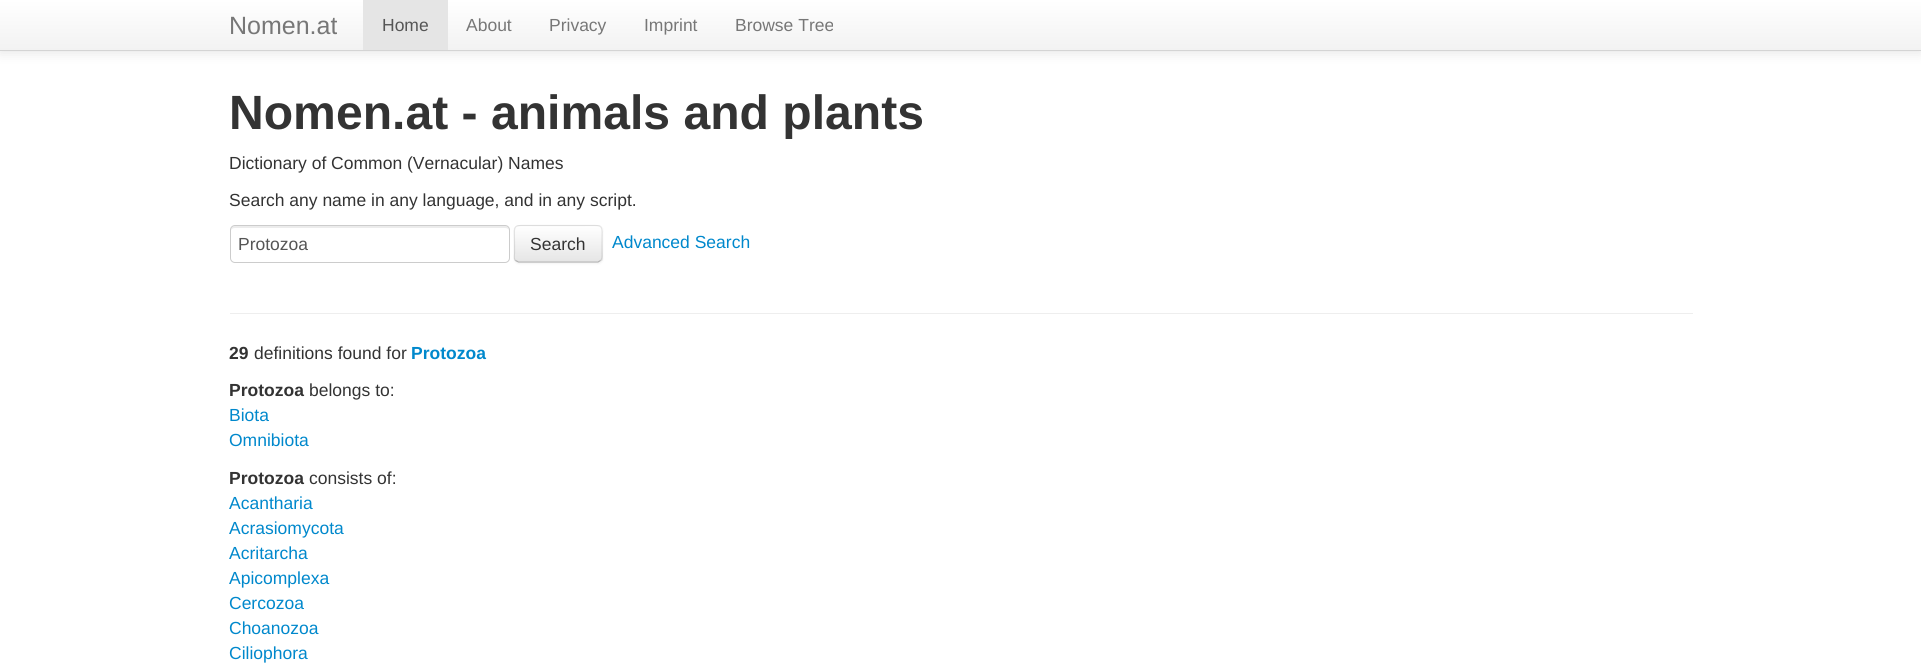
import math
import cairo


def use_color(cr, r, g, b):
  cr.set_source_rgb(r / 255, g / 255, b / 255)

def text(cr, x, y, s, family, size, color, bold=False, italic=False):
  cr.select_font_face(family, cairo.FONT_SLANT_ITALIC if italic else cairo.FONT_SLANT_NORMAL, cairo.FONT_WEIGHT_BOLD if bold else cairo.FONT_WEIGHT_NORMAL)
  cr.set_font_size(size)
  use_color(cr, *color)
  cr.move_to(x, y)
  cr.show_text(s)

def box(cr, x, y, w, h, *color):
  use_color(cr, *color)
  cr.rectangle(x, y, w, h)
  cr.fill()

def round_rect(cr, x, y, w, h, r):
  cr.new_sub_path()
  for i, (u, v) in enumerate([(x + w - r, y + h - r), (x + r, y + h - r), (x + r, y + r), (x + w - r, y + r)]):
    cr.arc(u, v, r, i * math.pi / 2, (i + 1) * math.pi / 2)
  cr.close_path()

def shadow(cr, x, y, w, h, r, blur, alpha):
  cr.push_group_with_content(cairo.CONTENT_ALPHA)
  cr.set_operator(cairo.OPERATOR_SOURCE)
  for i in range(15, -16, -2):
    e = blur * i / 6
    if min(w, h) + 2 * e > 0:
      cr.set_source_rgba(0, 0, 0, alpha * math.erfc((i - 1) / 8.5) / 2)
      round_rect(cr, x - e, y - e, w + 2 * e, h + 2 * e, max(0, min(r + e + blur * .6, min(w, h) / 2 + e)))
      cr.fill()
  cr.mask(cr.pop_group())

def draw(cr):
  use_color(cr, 255, 255, 255)
  cr.paint()
  use_color(cr, 0, 0, 0)
  shadow(cr, 0, 1, 1921, 52, 0, 6, 0.1)
  gradient = cairo.LinearGradient(961, 0, 961, 50)
  gradient.add_color_stop_rgba(0, 1, 1, 1, 1)
  gradient.add_color_stop_rgba(1, 0.949, 0.949, 0.949, 1)
  cr.set_source(gradient)
  cr.rectangle(0, 0, 1921, 50)
  cr.fill()
  box(cr, 0, 50, 1921, 1, 212, 212, 212)
  box(cr, 363, 0, 85, 50, 229, 229, 229)
  use_color(cr, 236, 236, 236)
  cr.new_path()
  cr.move_to(235, 228)
  cr.line_to(505, 228)
  cr.curve_to(507, 228, 509, 229, 509, 231)
  cr.curve_to(509, 228, 508, 226, 505, 226)
  cr.line_to(235, 226)
  cr.curve_to(232, 226, 231, 228, 231, 231)
  cr.curve_to(231, 229, 233, 228, 235, 228)
  cr.close_path()
  cr.fill()
  round_rect(cr, 230.5, 225.5, 279, 37, 4.5)
  use_color(cr, 204, 204, 204)
  cr.set_line_width(1)
  cr.stroke()
  use_color(cr, 0, 0, 0)
  shadow(cr, 514, 226, 89, 38, 5, 1, 0.05)
  use_color(cr, 245, 245, 245)
  round_rect(cr, 514, 225, 89, 38, 5)
  cr.fill()
  cr.save()
  round_rect(cr, 514, 225, 89, 38, 5)
  cr.clip()
  gradient = cairo.LinearGradient(558, 226, 558, 261)
  gradient.add_color_stop_rgba(0, 1, 1, 1, 1)
  gradient.add_color_stop_rgba(1, 0.902, 0.902, 0.902, 1)
  cr.set_source(gradient)
  cr.rectangle(514, 226, 89, 35)
  cr.fill()
  cr.restore()
  cr.new_path()
  cr.move_to(600.5, 260.5)
  cr.line_to(598, 262)
  cr.line_to(518.5, 262)
  cr.line_to(515.5, 260.5)
  use_color(cr, 179, 179, 179)
  cr.set_line_width(1.2)
  cr.stroke()
  cr.new_path()
  cr.move_to(515.5, 260.5)
  cr.curve_to(513.5, 258.5, 514.5, 255.5, 514.5, 253)
  cr.line_to(514.5, 244)
  cr.curve_to(514.5, 223.5, 511.5, 225.5, 532, 225.5)
  cr.line_to(584.5, 225.5)
  cr.curve_to(605, 225.5, 602, 223.5, 602, 244)
  cr.line_to(602, 253)
  cr.curve_to(602, 255.5, 602.5, 258.5, 600.5, 260.5)
  cr.set_source_rgba(0, 0, 0, 0.1)
  cr.stroke()
  box(cr, 230, 313, 1463, 1, 238, 238, 238)
  text(cr, 229, 34, "Nomen.at", "Liberation Sans", 25, (119, 119, 119))
  text(cr, 382, 31, "Home", "Liberation Sans", 17.5, (85, 85, 85))
  text(cr, 466, 31, "About", "Liberation Sans", 17.5, (119, 119, 119))
  text(cr, 549, 31, "Privacy", "Liberation Sans", 17.5, (119, 119, 119))
  text(cr, 644, 31, "Imprint", "Liberation Sans", 17.5, (119, 119, 119))
  text(cr, 735, 31, "Browse Tree", "Liberation Sans", 17.5, (119, 119, 119))
  text(cr, 229, 129, "Nomen.at - animals and plants", "Liberation Sans", 48.1, (51, 51, 51), bold=True)
  text(cr, 229, 169, "Dictionary of Common (Vernacular) Names", "Liberation Sans", 17.5, (51, 51, 51))
  text(cr, 229, 206, "Search any name in any language, and in any script.", "Liberation Sans", 17.5, (51, 51, 51))
  text(cr, 238, 250, "Protozoa", "Liberation Sans", 17.5, (85, 85, 85))
  text(cr, 530, 250, "Search", "Liberation Sans", 17.5, (51, 51, 51))
  text(cr, 612, 248, "Advanced Search", "Liberation Sans", 17.5, (0, 136, 204))
  text(cr, 229, 359, "29", "Liberation Sans", 17.5, (51, 51, 51), bold=True)
  text(cr, 254, 359, "definitions found for", "Liberation Sans", 17.5, (51, 51, 51))
  text(cr, 411, 359, "Protozoa", "Liberation Sans", 17.5, (0, 136, 204), bold=True)
  text(cr, 229, 396, "Protozoa", "Liberation Sans", 17.5, (51, 51, 51), bold=True)
  text(cr, 309, 396, "belongs to:", "Liberation Sans", 17.5, (51, 51, 51))
  text(cr, 229, 421, "Biota", "Liberation Sans", 17.5, (0, 136, 204))
  text(cr, 229, 446, "Omnibiota", "Liberation Sans", 17.5, (0, 136, 204))
  text(cr, 229, 484, "Protozoa", "Liberation Sans", 17.5, (51, 51, 51), bold=True)
  text(cr, 309, 484, "consists of:", "Liberation Sans", 17.5, (51, 51, 51))
  text(cr, 229, 509, "Acantharia", "Liberation Sans", 17.5, (0, 136, 204))
  text(cr, 229, 534, "Acrasiomycota", "Liberation Sans", 17.5, (0, 136, 204))
  text(cr, 229, 559, "Acritarcha", "Liberation Sans", 17.5, (0, 136, 204))
  text(cr, 229, 584, "Apicomplexa", "Liberation Sans", 17.5, (0, 136, 204))
  text(cr, 229, 609, "Cercozoa", "Liberation Sans", 17.5, (0, 136, 204))
  text(cr, 229, 634, "Choanozoa", "Liberation Sans", 17.5, (0, 136, 204))
  text(cr, 229, 659, "Ciliophora", "Liberation Sans", 17.5, (0, 136, 204))


surface = cairo.ImageSurface(cairo.FORMAT_RGB24, 1921, 672)
cr = cairo.Context(surface)
options = cairo.FontOptions()
options.set_hint_metrics(cairo.HINT_METRICS_OFF)
options.set_hint_style(cairo.HINT_STYLE_NONE)
cr.set_font_options(options)
cr.set_miter_limit(4)
draw(cr)
surface.write_to_png("out.png")
